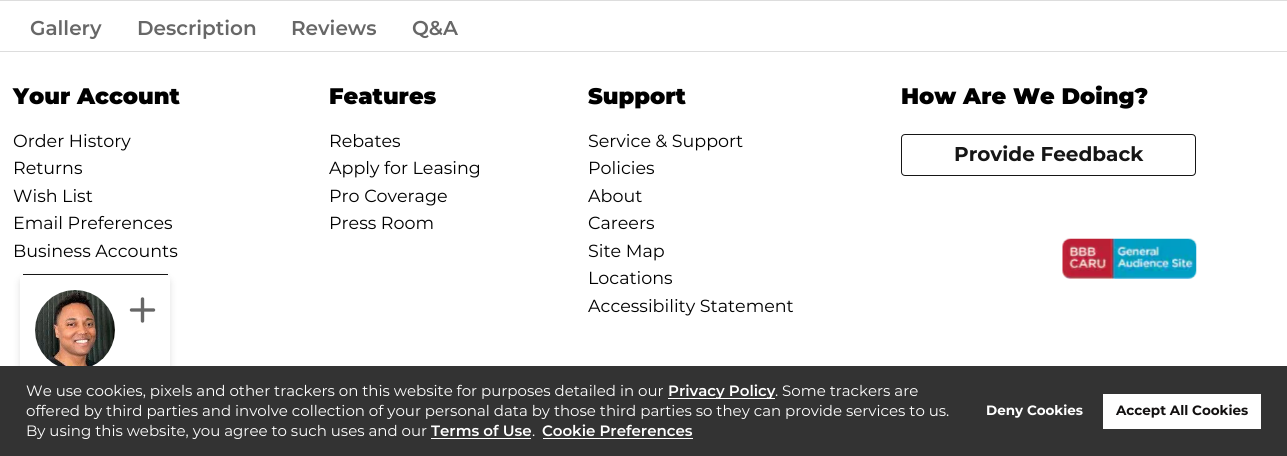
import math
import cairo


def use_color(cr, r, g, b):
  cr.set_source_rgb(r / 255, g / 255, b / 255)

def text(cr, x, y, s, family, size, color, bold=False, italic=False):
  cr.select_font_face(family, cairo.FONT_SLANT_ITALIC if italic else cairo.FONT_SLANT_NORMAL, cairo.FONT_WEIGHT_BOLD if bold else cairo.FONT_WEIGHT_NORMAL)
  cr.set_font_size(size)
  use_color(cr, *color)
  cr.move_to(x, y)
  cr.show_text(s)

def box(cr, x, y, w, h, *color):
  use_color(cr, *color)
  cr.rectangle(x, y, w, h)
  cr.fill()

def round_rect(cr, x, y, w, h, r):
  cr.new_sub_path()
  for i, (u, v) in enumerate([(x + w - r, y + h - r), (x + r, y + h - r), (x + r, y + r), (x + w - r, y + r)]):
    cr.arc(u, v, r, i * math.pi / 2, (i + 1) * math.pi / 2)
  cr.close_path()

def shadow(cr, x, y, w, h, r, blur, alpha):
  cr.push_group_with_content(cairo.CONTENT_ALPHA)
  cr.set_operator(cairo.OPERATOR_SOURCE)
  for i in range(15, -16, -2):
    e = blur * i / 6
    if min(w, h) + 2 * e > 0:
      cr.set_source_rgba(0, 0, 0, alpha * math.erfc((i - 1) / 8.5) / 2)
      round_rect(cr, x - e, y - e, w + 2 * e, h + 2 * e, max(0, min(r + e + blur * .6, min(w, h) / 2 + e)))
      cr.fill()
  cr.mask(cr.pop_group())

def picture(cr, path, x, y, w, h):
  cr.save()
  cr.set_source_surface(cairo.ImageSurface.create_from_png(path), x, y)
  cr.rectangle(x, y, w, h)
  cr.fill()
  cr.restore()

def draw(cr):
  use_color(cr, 255, 255, 255)
  cr.paint()
  box(cr, 0, 0, 1287, 1, 221, 221, 221)
  box(cr, 0, 51, 1287, 1, 221, 221, 221)
  use_color(cr, 0, 0, 0)
  shadow(cr, 20, 278, 150, 118, 5, 4, 0.12)
  use_color(cr, 255, 255, 255)
  cr.new_path()
  cr.move_to(25, 275)
  cr.line_to(165, 275)
  cr.curve_to(168, 275, 170, 277, 170, 279)
  cr.line_to(170, 388)
  cr.curve_to(170, 390, 168, 392, 165, 392)
  cr.line_to(25, 392)
  cr.curve_to(22, 392, 20, 390, 20, 388)
  cr.line_to(20, 279)
  cr.curve_to(20, 277, 22, 275, 25, 275)
  cr.close_path()
  cr.fill()
  box(cr, 23, 274, 145, 1, 22, 22, 22)
  picture(cr, "img_01.png", 35, 290, 80, 76)
  cr.new_path()
  cr.move_to(142.5, 299)
  cr.line_to(142.5, 321)
  cr.move_to(153.5, 310)
  cr.line_to(131.5, 310)
  use_color(cr, 103, 103, 103)
  cr.set_line_width(3.4)
  cr.set_line_cap(cairo.LINE_CAP_ROUND)
  cr.set_line_join(cairo.LINE_JOIN_ROUND)
  cr.stroke()
  round_rect(cr, 901.5, 134.5, 294, 41, 3.5)
  use_color(cr, 22, 22, 22)
  cr.set_line_width(1)
  cr.set_line_cap(cairo.LINE_CAP_BUTT)
  cr.set_line_join(cairo.LINE_JOIN_MITER)
  cr.stroke()
  picture(cr, "img_02.png", 1062, 238, 135, 41)
  box(cr, 0, 366, 1287, 90, 51, 51, 51)
  box(cr, 668, 398, 107, 1, 255, 255, 255)
  box(cr, 431, 438, 100, 1, 255, 255, 255)
  box(cr, 543, 438, 150, 1, 255, 255, 255)
  box(cr, 1103, 394, 158, 35, 255, 255, 255)
  text(cr, 30, 35, "Gallery", "Montserrat SemiBold", 20, (103, 103, 103))
  text(cr, 137, 35, "Description", "Montserrat SemiBold", 20, (103, 103, 103))
  text(cr, 291, 35, "Reviews", "Montserrat SemiBold", 20, (103, 103, 103))
  text(cr, 412, 35, "Q&A", "Montserrat SemiBold", 20, (103, 103, 103))
  text(cr, 13, 104, "Your Account", "Montserrat Black", 22.5, (0, 0, 0))
  text(cr, 13, 147, "Order History", "Montserrat", 17.5, (0, 0, 0))
  text(cr, 13, 174, "Returns", "Montserrat", 17.5, (0, 0, 0))
  text(cr, 13, 202, "Wish List", "Montserrat", 17.5, (0, 0, 0))
  text(cr, 13, 229, "Email Preferences", "Montserrat", 17.5, (0, 0, 0))
  text(cr, 13, 257, "Business Accounts", "Montserrat", 17.5, (0, 0, 0))
  text(cr, 329, 104, "Features", "Montserrat Black", 22.5, (0, 0, 0))
  text(cr, 329, 147, "Rebates", "Montserrat", 17.5, (0, 0, 0))
  text(cr, 329, 174, "Apply for Leasing", "Montserrat", 17.5, (0, 0, 0))
  text(cr, 329, 202, "Pro Coverage", "Montserrat", 17.5, (0, 0, 0))
  text(cr, 329, 229, "Press Room", "Montserrat", 17.5, (0, 0, 0))
  text(cr, 588, 104, "Support", "Montserrat Black", 22.5, (0, 0, 0))
  text(cr, 588, 147, "Service & Support", "Montserrat", 17.5, (0, 0, 0))
  text(cr, 588, 174, "Policies", "Montserrat", 17.5, (0, 0, 0))
  text(cr, 588, 202, "About", "Montserrat", 17.5, (0, 0, 0))
  text(cr, 588, 229, "Careers", "Montserrat", 17.5, (0, 0, 0))
  text(cr, 588, 257, "Site Map", "Montserrat", 17.5, (0, 0, 0))
  text(cr, 588, 284, "Locations", "Montserrat", 17.5, (0, 0, 0))
  text(cr, 588, 312, "Accessibility Statement", "Montserrat", 17.5, (0, 0, 0))
  text(cr, 901, 104, "How Are We Doing?", "Montserrat Black", 22.5, (0, 0, 0))
  text(cr, 954, 161, "Provide Feedback", "Montserrat", 20, (22, 22, 22), bold=True)
  text(cr, 26, 396, "We use cookies, pixels and other trackers on this website for purposes detailed in our", "Montserrat", 15, (255, 255, 255))
  text(cr, 668, 396, "Privacy Policy", "Montserrat SemiBold", 15, (255, 255, 255))
  text(cr, 775, 396, ". Some trackers are", "Montserrat", 15, (255, 255, 255))
  text(cr, 26, 416, "offered by third parties and involve collection of your personal data by those third parties so they can provide services to us.", "Montserrat", 15, (255, 255, 255))
  text(cr, 26, 436, "By using this website, you agree to such uses and our", "Montserrat", 15, (255, 255, 255))
  text(cr, 431, 436, "Terms of Use", "Montserrat SemiBold", 15, (255, 255, 255))
  text(cr, 532, 436, ".", "Montserrat", 15, (255, 255, 255))
  text(cr, 542, 436, "Cookie Preferences", "Montserrat SemiBold", 15, (255, 255, 255))
  text(cr, 986, 415, "Deny Cookies", "Montserrat", 13.5, (255, 255, 255), bold=True)
  text(cr, 1116, 415, "Accept All Cookies", "Montserrat", 13.5, (18, 16, 16), bold=True)


surface = cairo.ImageSurface(cairo.FORMAT_RGB24, 1287, 456)
cr = cairo.Context(surface)
options = cairo.FontOptions()
options.set_hint_metrics(cairo.HINT_METRICS_OFF)
options.set_hint_style(cairo.HINT_STYLE_NONE)
cr.set_font_options(options)
cr.set_miter_limit(4)
draw(cr)
surface.write_to_png("out.png")
